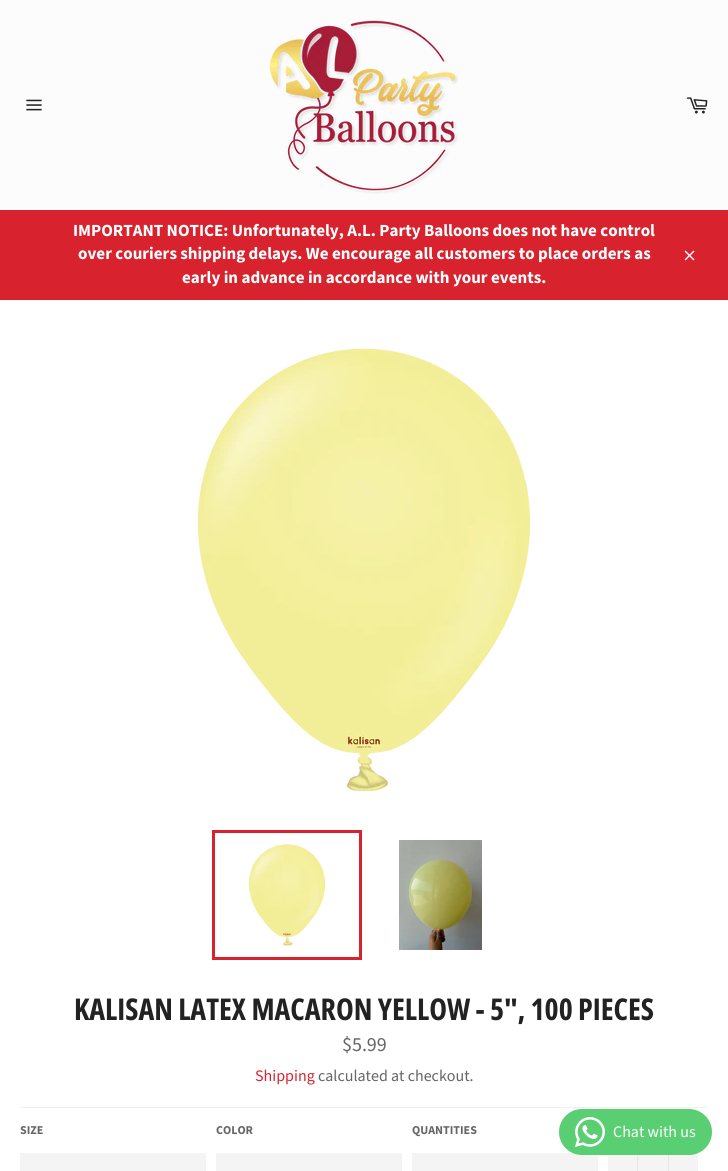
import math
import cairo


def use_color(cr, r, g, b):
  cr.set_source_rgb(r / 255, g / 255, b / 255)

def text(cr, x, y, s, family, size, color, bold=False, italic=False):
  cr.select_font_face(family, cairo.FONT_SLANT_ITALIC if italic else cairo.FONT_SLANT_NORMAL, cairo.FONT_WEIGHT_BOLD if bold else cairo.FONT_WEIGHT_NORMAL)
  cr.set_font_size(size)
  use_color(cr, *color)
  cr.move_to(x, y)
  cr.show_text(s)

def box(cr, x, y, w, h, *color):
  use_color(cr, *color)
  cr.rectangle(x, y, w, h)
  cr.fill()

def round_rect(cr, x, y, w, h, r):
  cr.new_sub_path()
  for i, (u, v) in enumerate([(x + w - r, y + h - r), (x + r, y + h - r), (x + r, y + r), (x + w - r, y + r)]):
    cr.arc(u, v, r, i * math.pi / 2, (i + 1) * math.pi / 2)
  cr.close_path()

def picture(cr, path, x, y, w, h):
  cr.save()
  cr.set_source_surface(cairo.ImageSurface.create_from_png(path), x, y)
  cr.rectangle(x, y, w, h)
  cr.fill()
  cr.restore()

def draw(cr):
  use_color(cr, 252, 252, 252)
  cr.paint()
  picture(cr, "img_01.png", 26, 99, 16, 12)
  picture(cr, "img_02.png", 269, 20, 189, 174)
  picture(cr, "img_03.png", 686, 97, 22, 17)
  box(cr, 0, 210, 728, 90, 216, 35, 47)
  picture(cr, "img_04.png", 684, 250, 11, 11)
  box(cr, 0, 300, 728, 871, 255, 255, 255)
  picture(cr, "img_05.png", 197, 348, 334, 444)
  picture(cr, "img_06.png", 248, 844, 78, 102)
  cr.rectangle(213.5, 831.5, 147, 127)
  use_color(cr, 216, 35, 47)
  cr.set_line_width(3)
  cr.stroke()
  picture(cr, "img_07.png", 399, 840, 83, 110)
  box(cr, 20, 1107, 688, 1, 240, 240, 240)
  box(cr, 20, 1153, 186, 18, 244, 244, 244)
  box(cr, 216, 1153, 186, 18, 244, 244, 244)
  box(cr, 412, 1153, 186, 18, 244, 244, 244)
  box(cr, 608, 1154, 90, 17, 244, 244, 244)
  box(cr, 637, 1154, 1, 17, 231, 231, 231)
  box(cr, 668, 1154, 1, 17, 231, 231, 231)
  use_color(cr, 89, 206, 114)
  round_rect(cr, 559, 1109, 153, 46, 23)
  cr.fill()
  picture(cr, "img_08.png", 575, 1117, 30, 30)
  text(cr, 73, 236, "IMPORTANT NOTICE: Unfortunately, A.L. Party Balloons does not have control", "Source Sans Pro", 17, (255, 255, 255), bold=True)
  text(cr, 78, 259, "over couriers shipping delays. We encourage all customers to place orders as", "Source Sans Pro", 17, (255, 255, 255), bold=True)
  text(cr, 182, 283, "early in advance in accordance with your events.", "Source Sans Pro", 17, (255, 255, 255), bold=True)
  text(cr, 74, 1020, "KALISAN LATEX MACARON YELLOW - 5\", 100 PIECES", "Open Sans Condensed", 30, (34, 34, 34), bold=True)
  text(cr, 342, 1051, "$5.99", "Source Sans Pro", 20, (102, 102, 102))
  text(cr, 255, 1081, "Shipping", "Source Sans Pro", 16, (216, 35, 47))
  text(cr, 318, 1081, "calculated at checkout.", "Source Sans Pro", 16, (102, 102, 102))
  text(cr, 20, 1134, "SIZE", "Source Sans Pro", 12, (102, 102, 102), bold=True)
  text(cr, 216, 1134, "COLOR", "Source Sans Pro", 12, (102, 102, 102), bold=True)
  text(cr, 412, 1134, "QUANTITIES", "Source Sans Pro", 12, (102, 102, 102), bold=True)
  text(cr, 613, 1137, "Chat with us", "Source Sans Pro", 16, (255, 255, 255))


surface = cairo.ImageSurface(cairo.FORMAT_RGB24, 728, 1171)
cr = cairo.Context(surface)
options = cairo.FontOptions()
options.set_hint_metrics(cairo.HINT_METRICS_OFF)
options.set_hint_style(cairo.HINT_STYLE_NONE)
cr.set_font_options(options)
cr.set_miter_limit(4)
draw(cr)
surface.write_to_png("out.png")
